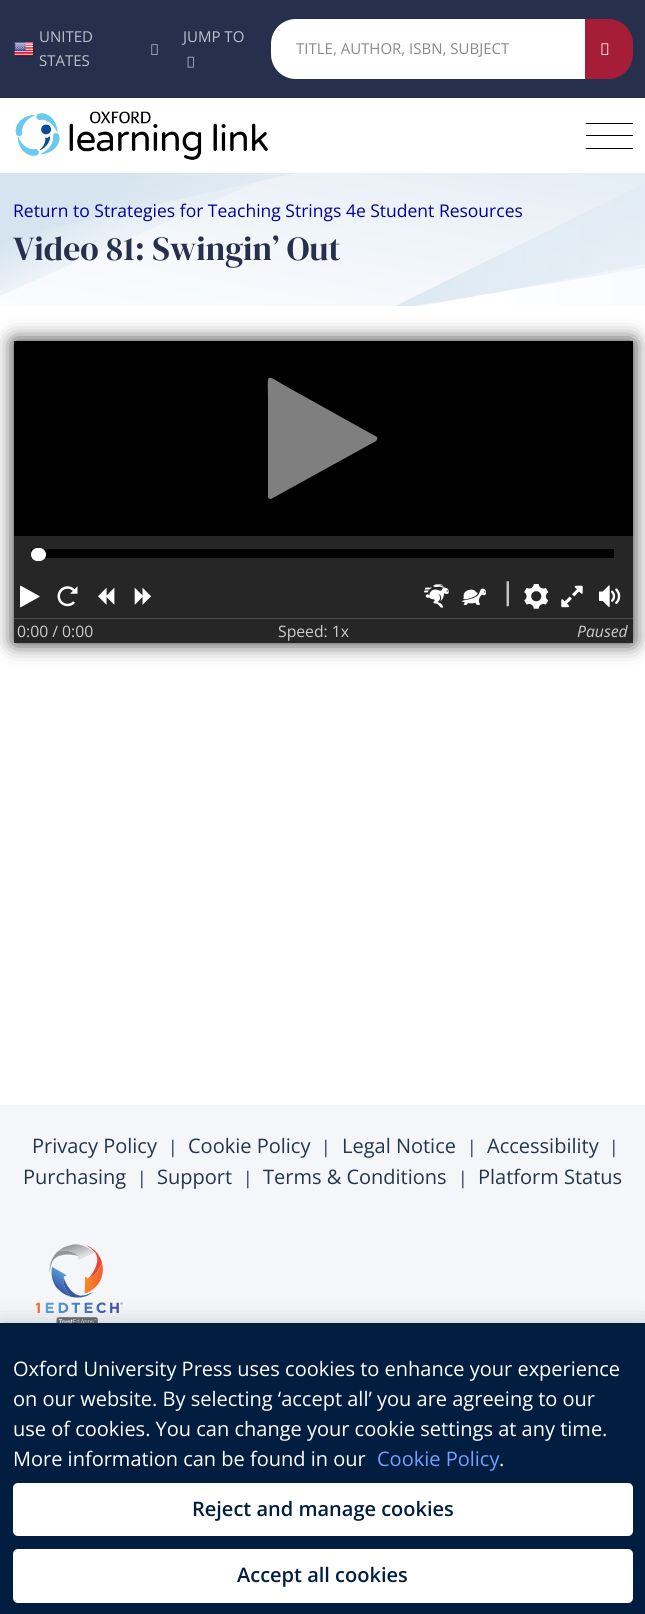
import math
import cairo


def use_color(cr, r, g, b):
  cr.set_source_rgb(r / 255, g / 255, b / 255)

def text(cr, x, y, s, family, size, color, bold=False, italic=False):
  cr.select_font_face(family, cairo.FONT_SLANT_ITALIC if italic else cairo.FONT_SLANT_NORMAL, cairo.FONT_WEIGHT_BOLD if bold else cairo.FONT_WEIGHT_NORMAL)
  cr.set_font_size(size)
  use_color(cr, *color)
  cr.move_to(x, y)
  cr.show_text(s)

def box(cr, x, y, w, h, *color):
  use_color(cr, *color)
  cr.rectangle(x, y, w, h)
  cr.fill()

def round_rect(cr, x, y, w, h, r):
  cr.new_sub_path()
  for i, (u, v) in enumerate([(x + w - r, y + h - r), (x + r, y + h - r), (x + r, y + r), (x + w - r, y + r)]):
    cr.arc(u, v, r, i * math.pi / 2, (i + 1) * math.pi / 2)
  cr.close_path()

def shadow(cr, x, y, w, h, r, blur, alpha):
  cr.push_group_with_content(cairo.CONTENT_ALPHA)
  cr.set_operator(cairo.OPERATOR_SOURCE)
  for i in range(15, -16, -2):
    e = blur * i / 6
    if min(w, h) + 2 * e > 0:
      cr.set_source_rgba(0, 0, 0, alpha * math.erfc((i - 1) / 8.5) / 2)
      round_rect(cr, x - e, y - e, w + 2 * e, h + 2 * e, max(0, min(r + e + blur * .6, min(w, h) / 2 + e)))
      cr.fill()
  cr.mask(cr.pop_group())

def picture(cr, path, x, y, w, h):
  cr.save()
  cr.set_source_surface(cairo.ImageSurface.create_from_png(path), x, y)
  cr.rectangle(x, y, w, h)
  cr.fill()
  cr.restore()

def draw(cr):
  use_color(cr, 255, 255, 255)
  cr.paint()
  box(cr, 0, 0, 645, 98, 38, 48, 77)
  picture(cr, "img_01.png", 14, 42, 20, 15)
  picture(cr, "img_02.png", 151, 44, 7, 11)
  picture(cr, "img_03.png", 187, 56, 7, 12)
  use_color(cr, 255, 255, 255)
  cr.new_path()
  cr.move_to(296, 19)
  cr.line_to(586, 19)
  cr.line_to(586, 79)
  cr.line_to(296, 79)
  cr.curve_to(282, 79, 271, 68, 271, 54)
  cr.line_to(271, 44)
  cr.curve_to(271, 30, 282, 19, 296, 19)
  cr.close_path()
  cr.fill()
  use_color(cr, 166, 29, 55)
  cr.new_path()
  cr.move_to(585, 19)
  cr.line_to(608, 19)
  cr.curve_to(622, 19, 633, 30, 633, 44)
  cr.line_to(633, 54)
  cr.curve_to(633, 68, 622, 79, 608, 79)
  cr.line_to(585, 79)
  cr.close_path()
  cr.fill()
  picture(cr, "img_04.png", 601, 43, 8, 12)
  picture(cr, "img_05.png", 15, 111, 253, 49)
  box(cr, 586, 123, 47, 1, 0, 0, 0)
  box(cr, 586, 135, 47, 1, 0, 0, 0)
  box(cr, 586, 148, 47, 1, 0, 0, 0)
  cr.save()
  cr.rectangle(0, 173, 645, 133)
  cr.clip()
  gradient = cairo.LinearGradient(284, 436, 354, 42)
  gradient.add_color_stop_rgba(0, 1, 1, 1, 1)
  gradient.add_color_stop_rgba(0.37, 0.965, 0.976, 0.988, 1)
  gradient.add_color_stop_rgba(0.99, 0.867, 0.91, 0.949, 1)
  gradient.add_color_stop_rgba(1, 0.863, 0.91, 0.949, 1)
  cr.set_source(gradient)
  cr.new_path()
  cr.move_to(400, 94)
  cr.line_to(645, 94)
  cr.line_to(645, 264)
  cr.line_to(0, 386)
  cr.line_to(0, 173)
  cr.close_path()
  cr.fill()
  gradient = cairo.LinearGradient(255, 326, 645, 326)
  gradient.add_color_stop_rgba(0.62, 1, 1, 1, 1)
  gradient.add_color_stop_rgba(0.71, 0.984, 0.992, 0.996, 1)
  gradient.add_color_stop_rgba(1, 0.976, 0.988, 0.996, 1)
  cr.set_source(gradient)
  cr.new_path()
  cr.move_to(645, 268)
  cr.line_to(645, 345)
  cr.line_to(405, 384)
  cr.line_to(255, 336)
  cr.close_path()
  cr.fill()
  gradient = cairo.LinearGradient(372, 252, 245, 32)
  gradient.add_color_stop_rgba(0.33, 0.863, 0.91, 0.949, 0.4)
  gradient.add_color_stop_rgba(0.35, 0.863, 0.91, 0.949, 0.43)
  gradient.add_color_stop_rgba(0.77, 0.835, 0.894, 0.937, 1)
  cr.set_source(gradient)
  cr.new_path()
  cr.move_to(0, 173)
  cr.line_to(400, 94)
  cr.line_to(645, 94)
  cr.line_to(0, 240)
  cr.close_path()
  cr.fill()
  gradient = cairo.LinearGradient(189, 235, 134, 139)
  gradient.add_color_stop_rgba(0.33, 0.863, 0.91, 0.949, 0.4)
  gradient.add_color_stop_rgba(0.35, 0.863, 0.91, 0.949, 0.43)
  gradient.add_color_stop_rgba(0.77, 0.835, 0.894, 0.937, 1)
  cr.set_source(gradient)
  cr.new_path()
  cr.move_to(0, 240)
  cr.line_to(0, 296)
  cr.line_to(358, 137)
  cr.line_to(0, 217)
  cr.close_path()
  cr.fill()
  gradient = cairo.LinearGradient(385, 247, 645, 247)
  gradient.add_color_stop_rgba(0, 0.835, 0.894, 0.937, 0.8)
  gradient.add_color_stop_rgba(1, 0.863, 0.91, 0.949, 0.4)
  cr.set_source(gradient)
  cr.new_path()
  cr.move_to(645, 183)
  cr.line_to(645, 268)
  cr.line_to(385, 311)
  cr.close_path()
  cr.fill()
  cr.restore()
  use_color(cr, 38, 38, 38)
  shadow(cr, 14, 341, 619, 302, 0, 10, 1)
  box(cr, 14, 341, 619, 195, 0, 0, 0)
  use_color(cr, 127, 127, 127)
  cr.new_path()
  cr.move_to(268, 496)
  cr.line_to(268, 400)
  cr.curve_to(268, 371, 264, 374, 289, 388)
  cr.line_to(377, 437)
  cr.curve_to(378, 438, 377, 440, 376, 441)
  cr.line_to(271, 499)
  cr.curve_to(269, 499, 268, 498, 268, 496)
  cr.close_path()
  cr.fill()
  box(cr, 14, 536, 619, 107, 38, 38, 38)
  box(cr, 14, 618, 619, 1, 76, 76, 76)
  box(cr, 31, 549, 583, 9, 0, 0, 0)
  use_color(cr, 253, 253, 253)
  round_rect(cr, 31.5, 548.5, 14, 12, 6)
  cr.fill_preserve()
  use_color(cr, 255, 255, 255)
  cr.set_line_width(1)
  cr.stroke()
  picture(cr, "img_06.png", 20, 585, 20, 23)
  picture(cr, "img_07.png", 57, 586, 21, 21)
  picture(cr, "img_08.png", 98, 587, 17, 18)
  picture(cr, "img_09.png", 134, 587, 17, 18)
  picture(cr, "img_10.png", 424, 584, 25, 24)
  picture(cr, "img_11.png", 461, 588, 25, 17)
  picture(cr, "img_12.png", 506, 581, 3, 26)
  picture(cr, "img_13.png", 524, 584, 25, 25)
  picture(cr, "img_14.png", 561, 585, 22, 23)
  picture(cr, "img_15.png", 599, 585, 22, 23)
  box(cr, 0, 1105, 645, 218, 245, 246, 250)
  picture(cr, "img_16.png", 35, 1244, 88, 79)
  use_color(cr, 0, 0, 0)
  shadow(cr, 0, 1323, 645, 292, 0, 11, 0.2)
  box(cr, 0, 1323, 645, 291, 1, 30, 65)
  use_color(cr, 255, 255, 255)
  round_rect(cr, 13, 1483, 620, 53, 5)
  cr.fill()
  round_rect(cr, 13, 1549, 620, 54, 5)
  cr.fill()
  text(cr, 39, 42, "UNITED", "Open Sans", 15, (190, 193, 202))
  text(cr, 39, 66, "STATES", "Open Sans", 15, (190, 193, 202))
  text(cr, 183, 42, "JUMP TO", "Open Sans", 15, (190, 193, 202))
  text(cr, 296, 54, "TITLE, AUTHOR, ISBN, SUBJECT", "Open Sans", 15, (137, 137, 137))
  text(cr, 13, 217, "Return to Strategies for Teaching Strings 4e Student Resources", "Open Sans", 17.5, (0, 0, 153))
  text(cr, 13, 260, "Video 81: Swingin’ Out", "DM Serif Display", 33.75, (38, 48, 77))
  text(cr, 17, 637, "0:00 / 0:00", "Open Sans", 15.75, (204, 204, 204))
  text(cr, 278, 637, "Speed: 1x", "Open Sans", 15.75, (204, 204, 204))
  text(cr, 577, 637, "Paused", "Open Sans", 15.75, (204, 204, 204), italic=True)
  text(cr, 32, 1153, "Privacy Policy", "Open Sans", 20, (34, 54, 76))
  text(cr, 168, 1153, "|", "Open Sans", 17.5, (38, 48, 77))
  text(cr, 188, 1153, "Cookie Policy", "Open Sans", 20, (34, 54, 76))
  text(cr, 321, 1153, "|", "Open Sans", 17.5, (38, 48, 77))
  text(cr, 342, 1153, "Legal Notice", "Open Sans", 20, (34, 54, 76))
  text(cr, 467, 1153, "|", "Open Sans", 17.5, (38, 48, 77))
  text(cr, 487, 1153, "Accessibility", "Open Sans", 20, (34, 54, 76))
  text(cr, 609, 1153, "|", "Open Sans", 17.5, (38, 48, 77))
  text(cr, 23, 1184, "Purchasing", "Open Sans", 20, (34, 54, 76))
  text(cr, 137, 1184, "|", "Open Sans", 17.5, (38, 48, 77))
  text(cr, 157, 1184, "Support", "Open Sans", 20, (34, 54, 76))
  text(cr, 243, 1184, "|", "Open Sans", 17.5, (38, 48, 77))
  text(cr, 263, 1184, "Terms & Conditions", "Open Sans", 20, (34, 54, 76))
  text(cr, 458, 1184, "|", "Open Sans", 17.5, (38, 48, 77))
  text(cr, 478, 1184, "Platform Status", "Open Sans", 20, (34, 54, 76))
  text(cr, 13, 1376, "Oxford University Press uses cookies to enhance your experience", "Open Sans", 20, (255, 255, 255))
  text(cr, 13, 1406, "on our website. By selecting ‘accept all’ you are agreeing to our", "Open Sans", 20, (255, 255, 255))
  text(cr, 13, 1436, "use of cookies. You can change your cookie settings at any time.", "Open Sans", 20, (255, 255, 255))
  text(cr, 13, 1466, "More information can be found in our", "Open Sans", 20, (255, 255, 255))
  text(cr, 377, 1466, "Cookie Policy", "Open Sans", 20, (117, 159, 255))
  text(cr, 499, 1466, ".", "Open Sans", 20, (255, 255, 255))
  text(cr, 192, 1516, "Reject and manage cookies", "Open Sans SemiBold", 20, (1, 30, 65))
  text(cr, 237, 1582, "Accept all cookies", "Open Sans SemiBold", 20, (1, 30, 65))


surface = cairo.ImageSurface(cairo.FORMAT_RGB24, 645, 1614)
cr = cairo.Context(surface)
options = cairo.FontOptions()
options.set_hint_metrics(cairo.HINT_METRICS_OFF)
options.set_hint_style(cairo.HINT_STYLE_NONE)
cr.set_font_options(options)
cr.set_miter_limit(4)
draw(cr)
surface.write_to_png("out.png")
